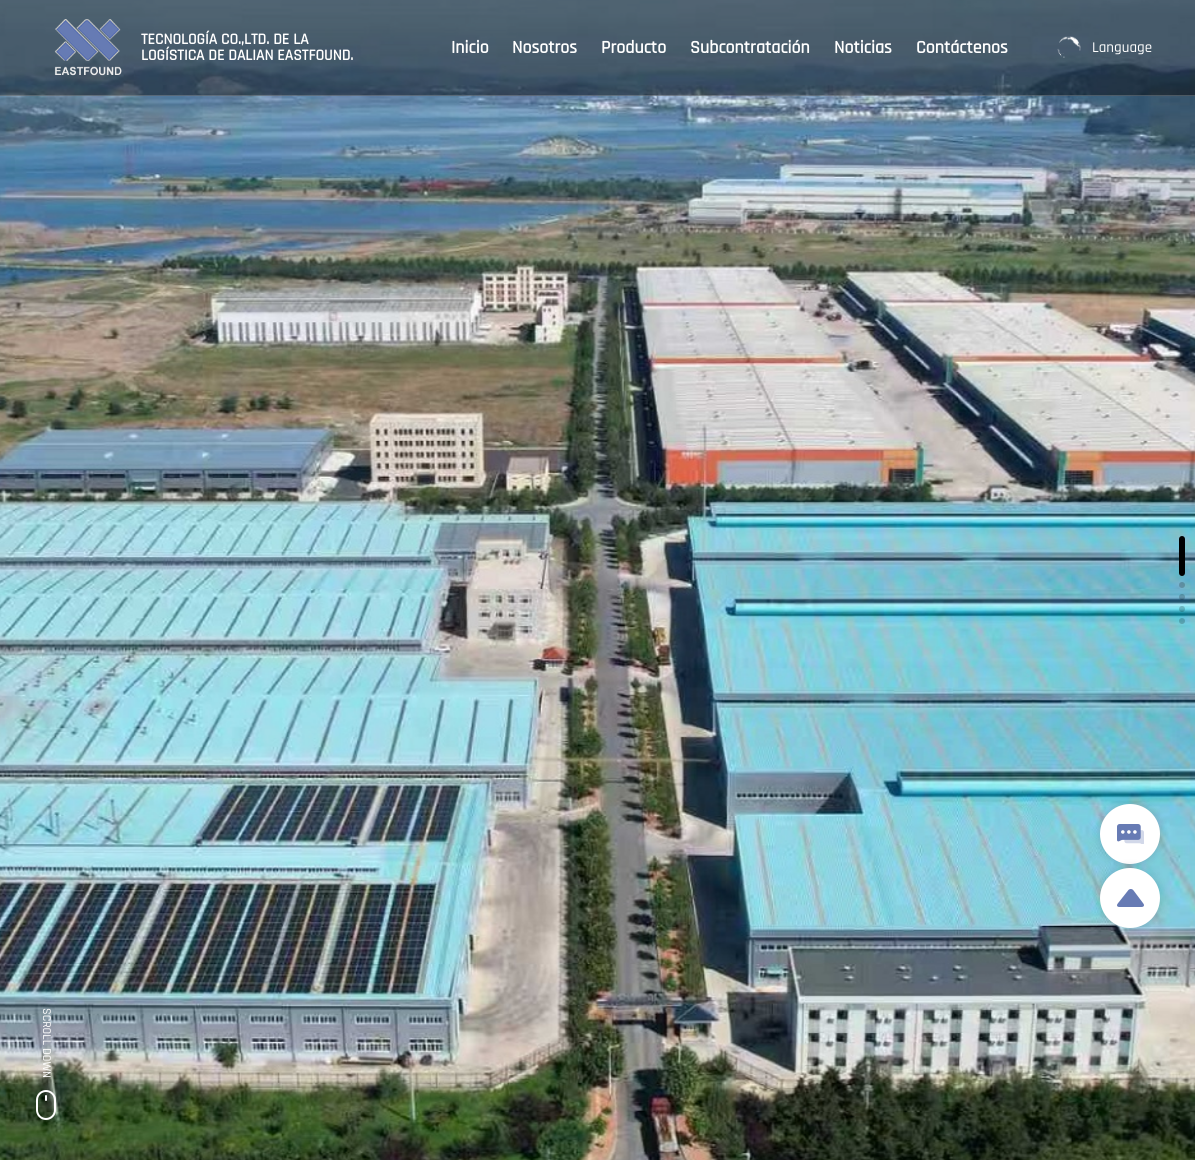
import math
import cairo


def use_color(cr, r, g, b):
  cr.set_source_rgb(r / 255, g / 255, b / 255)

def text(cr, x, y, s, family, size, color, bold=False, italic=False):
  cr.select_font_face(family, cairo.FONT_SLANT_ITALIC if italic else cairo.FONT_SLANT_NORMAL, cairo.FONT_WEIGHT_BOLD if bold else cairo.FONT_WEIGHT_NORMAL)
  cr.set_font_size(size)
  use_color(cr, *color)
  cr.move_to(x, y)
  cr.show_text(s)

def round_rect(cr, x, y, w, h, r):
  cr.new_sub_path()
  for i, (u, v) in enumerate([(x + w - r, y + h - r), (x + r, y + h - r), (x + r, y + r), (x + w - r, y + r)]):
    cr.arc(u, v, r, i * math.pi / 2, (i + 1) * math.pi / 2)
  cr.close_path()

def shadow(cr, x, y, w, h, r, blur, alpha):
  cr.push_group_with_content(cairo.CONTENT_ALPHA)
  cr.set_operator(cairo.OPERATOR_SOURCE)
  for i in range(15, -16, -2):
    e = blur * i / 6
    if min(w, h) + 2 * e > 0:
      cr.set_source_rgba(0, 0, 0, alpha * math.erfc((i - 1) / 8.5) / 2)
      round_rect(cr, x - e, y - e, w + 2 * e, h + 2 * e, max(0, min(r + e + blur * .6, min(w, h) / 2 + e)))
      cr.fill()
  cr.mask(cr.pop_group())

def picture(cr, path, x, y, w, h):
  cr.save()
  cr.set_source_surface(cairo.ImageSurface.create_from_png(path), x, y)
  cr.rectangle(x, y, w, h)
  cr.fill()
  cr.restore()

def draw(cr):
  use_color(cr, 255, 255, 255)
  cr.paint()
  picture(cr, "img_05.png", 0, 0, 1195, 1160)
  cr.set_source_rgba(0, 0, 0, 0.45)
  cr.rectangle(0, 0, 1195, 96)
  cr.fill()
  cr.set_source_rgba(1, 1, 1, 0.2)
  cr.rectangle(0, 95, 1195, 1)
  cr.fill()
  picture(cr, "img_01.png", 54, 19, 68, 57)
  picture(cr, "img_02.png", 1057, 36, 24, 22)
  use_color(cr, 0, 0, 0)
  shadow(cr, 1100, 804, 60, 60, 30, 5, 0.15)
  use_color(cr, 255, 255, 255)
  cr.arc(1130, 834, 30, 0, 2 * math.pi)
  cr.fill()
  picture(cr, "img_03.png", 1117, 824, 27, 20)
  use_color(cr, 0, 0, 0)
  shadow(cr, 1100, 868, 60, 60, 30, 5, 0.15)
  use_color(cr, 255, 255, 255)
  cr.arc(1130, 898, 30, 0, 2 * math.pi)
  cr.fill()
  picture(cr, "img_04.png", 1117, 889, 27, 18)
  round_rect(cr, 37, 1091, 18, 28, 9)
  cr.stroke()
  round_rect(cr, 45, 1095, 2, 6, 1)
  cr.fill()
  use_color(cr, 0, 0, 0)
  round_rect(cr, 1179, 536, 6, 40, 3)
  cr.fill()
  cr.set_source_rgba(0, 0, 0, 0.2)
  cr.arc(1182, 585, 3, 0, 2 * math.pi)
  cr.fill()
  cr.arc(1182, 597, 3, 0, 2 * math.pi)
  cr.fill()
  cr.arc(1182, 609, 3, 0, 2 * math.pi)
  cr.fill()
  cr.arc(1182, 621, 3, 0, 2 * math.pi)
  cr.fill()
  text(cr, 141, 44, "TECNOLOGÍA CO.,LTD. DE LA", "Rajdhani", 15.5, (255, 255, 255), bold=True)
  text(cr, 141, 60, "LOGÍSTICA DE DALIAN EASTFOUND.", "Rajdhani", 15.5, (255, 255, 255), bold=True)
  text(cr, 451, 53, "Inicio", "Rajdhani", 18, (255, 255, 255), bold=True)
  text(cr, 512, 53, "Nosotros", "Rajdhani", 18, (255, 255, 255), bold=True)
  text(cr, 601, 53, "Producto", "Rajdhani", 18, (255, 255, 255), bold=True)
  text(cr, 690, 53, "Subcontratación", "Rajdhani", 18, (255, 255, 255), bold=True)
  text(cr, 834, 53, "Noticias", "Rajdhani", 18, (255, 255, 255), bold=True)
  text(cr, 916, 53, "Contáctenos", "Rajdhani", 18, (255, 255, 255), bold=True)
  text(cr, 1092, 52, "Language", "Rajdhani Medium", 15, (255, 255, 255))
  cr.save()
  cr.translate(43, 1008)
  cr.rotate(90 * math.pi / 180)
  text(cr, 0, 0, "SCROLL DOWN", "Rajdhani Medium", 12, (255, 255, 255))
  cr.restore()


surface = cairo.ImageSurface(cairo.FORMAT_RGB24, 1195, 1160)
cr = cairo.Context(surface)
options = cairo.FontOptions()
options.set_hint_metrics(cairo.HINT_METRICS_OFF)
options.set_hint_style(cairo.HINT_STYLE_NONE)
cr.set_font_options(options)
cr.set_miter_limit(4)
draw(cr)
surface.write_to_png("out.png")
